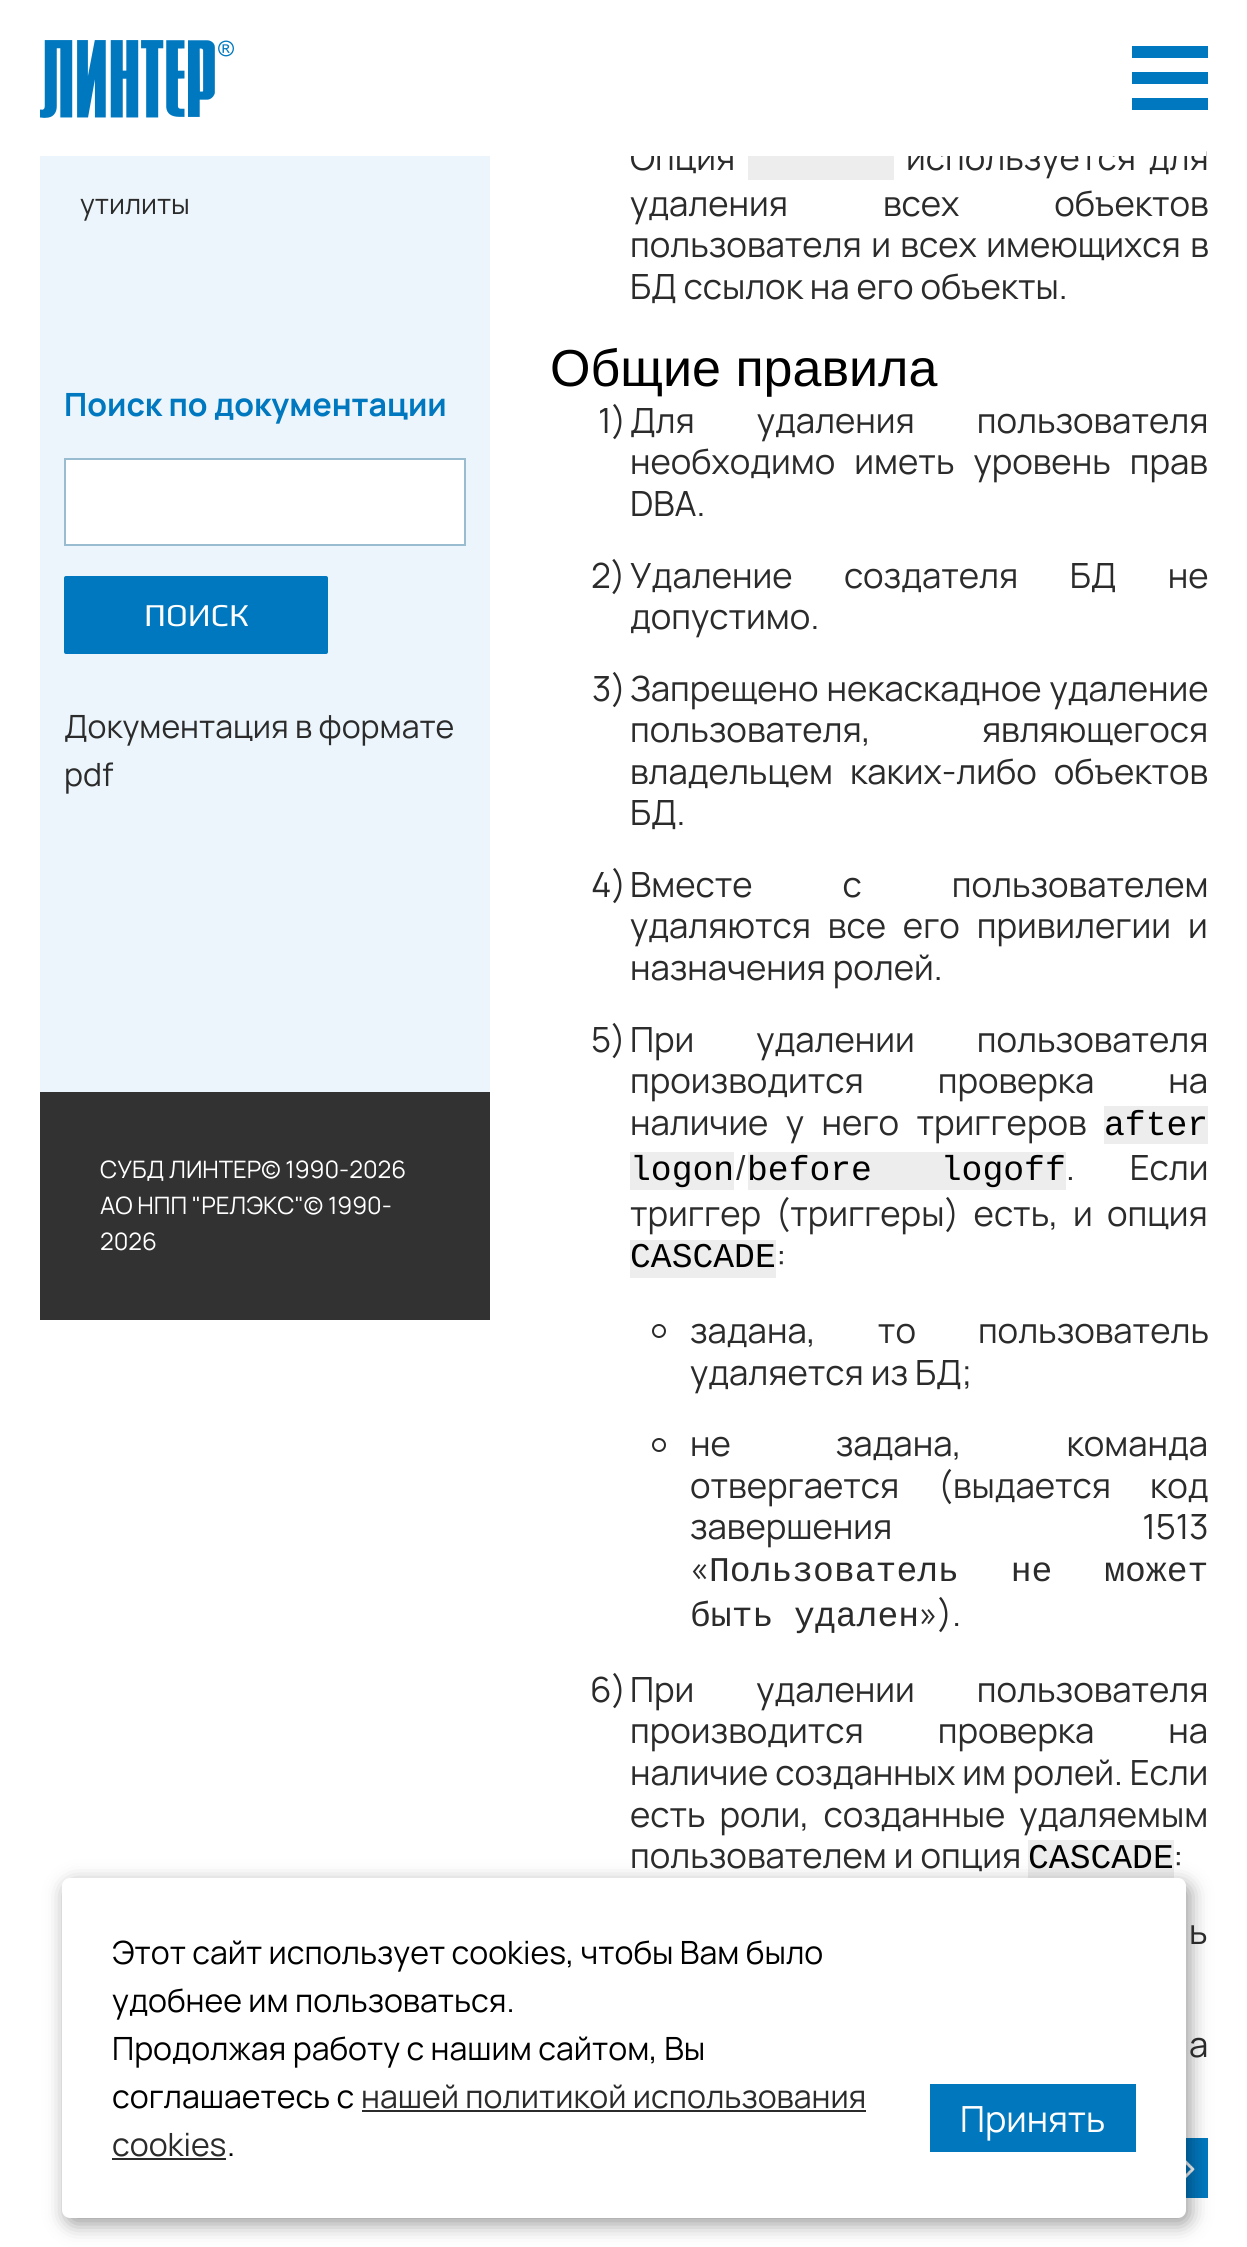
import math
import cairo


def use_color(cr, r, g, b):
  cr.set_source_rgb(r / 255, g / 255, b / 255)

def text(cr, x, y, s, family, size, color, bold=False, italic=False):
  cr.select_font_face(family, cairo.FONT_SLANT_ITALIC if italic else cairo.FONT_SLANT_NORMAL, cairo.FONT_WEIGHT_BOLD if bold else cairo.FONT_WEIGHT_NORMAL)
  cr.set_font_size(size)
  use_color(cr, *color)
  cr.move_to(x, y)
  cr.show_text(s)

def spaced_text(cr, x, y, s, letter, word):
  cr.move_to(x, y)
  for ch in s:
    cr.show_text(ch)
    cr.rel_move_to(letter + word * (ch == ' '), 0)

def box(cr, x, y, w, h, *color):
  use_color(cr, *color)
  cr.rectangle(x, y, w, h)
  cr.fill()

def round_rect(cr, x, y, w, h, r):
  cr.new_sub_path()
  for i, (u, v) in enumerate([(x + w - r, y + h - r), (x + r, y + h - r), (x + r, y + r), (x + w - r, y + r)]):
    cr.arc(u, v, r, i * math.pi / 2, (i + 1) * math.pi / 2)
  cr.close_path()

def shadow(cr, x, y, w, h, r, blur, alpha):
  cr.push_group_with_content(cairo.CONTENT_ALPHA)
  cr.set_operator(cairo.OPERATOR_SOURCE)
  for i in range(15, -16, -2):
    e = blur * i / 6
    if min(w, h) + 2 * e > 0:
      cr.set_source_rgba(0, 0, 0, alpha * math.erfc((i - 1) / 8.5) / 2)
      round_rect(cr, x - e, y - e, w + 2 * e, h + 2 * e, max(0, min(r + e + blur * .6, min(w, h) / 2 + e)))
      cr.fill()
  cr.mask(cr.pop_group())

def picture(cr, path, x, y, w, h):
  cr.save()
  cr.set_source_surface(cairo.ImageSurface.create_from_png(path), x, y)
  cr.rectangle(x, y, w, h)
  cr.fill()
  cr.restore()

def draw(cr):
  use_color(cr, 255, 255, 255)
  cr.paint()
  picture(cr, "img_01.png", 40, 40, 194, 78)
  box(cr, 1132, 46, 76, 12, 0, 120, 191)
  box(cr, 1132, 72, 76, 12, 0, 120, 191)
  box(cr, 1132, 98, 76, 12, 0, 120, 191)
  box(cr, 40, 156, 450, 936, 235, 245, 251)
  use_color(cr, 255, 255, 255)
  cr.rectangle(65, 459, 400, 86)
  cr.fill_preserve()
  use_color(cr, 154, 188, 208)
  cr.stroke()
  use_color(cr, 0, 120, 191)
  round_rect(cr, 64, 576, 264, 78, 2)
  cr.fill()
  box(cr, 40, 1092, 450, 228, 50, 50, 50)
  box(cr, 748, 156, 146, 24, 237, 237, 237)
  box(cr, 1104, 1106, 104, 38, 237, 237, 237)
  box(cr, 630, 1152, 104, 38, 237, 237, 237)
  box(cr, 748, 1152, 318, 38, 237, 237, 237)
  box(cr, 630, 1240, 146, 38, 237, 237, 237)
  cr.arc(659, 1331, 6, 0, 2 * math.pi)
  use_color(cr, 42, 42, 42)
  cr.stroke()
  cr.arc(659, 1445, 6, 0, 2 * math.pi)
  cr.stroke()
  box(cr, 1028, 1840, 146, 38, 237, 237, 237)
  picture(cr, "img_02.png", 1186, 2138, 22, 60)
  use_color(cr, 0, 0, 0)
  shadow(cr, 66, 1884, 1124, 340, 8, 10, 0.4)
  use_color(cr, 255, 255, 255)
  round_rect(cr, 62, 1878, 1124, 340, 8)
  cr.fill()
  box(cr, 362, 2110, 504, 2, 43, 43, 43)
  box(cr, 112, 2158, 114, 2, 43, 43, 43)
  box(cr, 930, 2084, 206, 68, 1, 120, 190)
  text(cr, 80, 214, "утилиты", "Manrope", 28, (43, 43, 43))
  text(cr, 64, 416, "Поиск по документации", "Manrope", 32, (0, 120, 191), bold=True)
  text(cr, 144, 626, "ПОИСК", "Play", 32, (255, 255, 255))
  text(cr, 64, 738, "Документация в формате", "Manrope", 32, (43, 43, 43))
  text(cr, 64, 786, "pdf", "Manrope", 32, (43, 43, 43))
  text(cr, 100, 1178, "СУБД ЛИНТЕР© 1990-2026", "Manrope", 24, (255, 255, 255))
  text(cr, 100, 1214, "АО НПП \"РЕЛЭКС\"© 1990-", "Manrope", 24, (255, 255, 255))
  text(cr, 100, 1250, "2026", "Manrope", 24, (255, 255, 255))
  text(cr, 630, 170, "Опция", "Manrope", 34.7, (43, 43, 43))
  spaced_text(cr, 906, 170, "используется для", 0, 6)
  box(cr, 631, 144, 575, 12, 255, 255, 255)
  use_color(cr, 43, 43, 43)
  spaced_text(cr, 630, 216, "удаления всех объектов", 0, 88)
  spaced_text(cr, 630, 257, "пользователя и всех имеющихся в", 0, 2.5)
  text(cr, 630, 299, "БД ссылок на его объекты.", "Manrope", 34.7, (43, 43, 43))
  text(cr, 550, 386, "Общие правила", "Liberation Sans", 52, (0, 0, 0))
  text(cr, 598, 433, "1)", "Manrope", 34.7, (43, 43, 43))
  spaced_text(cr, 630, 433, "Для удаления пользователя", 0, 55)
  spaced_text(cr, 630, 474, "необходимо иметь уровень прав", 0, 12)
  text(cr, 630, 516, "DBA.", "Manrope", 34.7, (43, 43, 43))
  text(cr, 591, 588, "2)", "Manrope", 34.7, (43, 43, 43))
  spaced_text(cr, 630, 588, "Удаление создателя БД не", 0, 44.5)
  text(cr, 630, 629, "допустимо.", "Manrope", 34.7, (43, 43, 43))
  text(cr, 592, 701, "3)", "Manrope", 34.7, (43, 43, 43))
  spaced_text(cr, 630, 701, "Запрещено некаскадное удаление", 0, 1)
  spaced_text(cr, 630, 742, "пользователя, являющегося", 0, 104)
  spaced_text(cr, 630, 784, "владельцем каких-либо объектов", 0, 10)
  text(cr, 630, 825, "БД.", "Manrope", 34.7, (43, 43, 43))
  text(cr, 591, 897, "4)", "Manrope", 34.7, (43, 43, 43))
  spaced_text(cr, 630, 897, "Вместе с пользователем", 0, 83)
  spaced_text(cr, 630, 938, "удаляются все его привилегии и", 0, 10)
  text(cr, 630, 980, "назначения ролей.", "Manrope", 34.7, (43, 43, 43))
  text(cr, 591, 1052, "5)", "Manrope", 34.7, (43, 43, 43))
  spaced_text(cr, 630, 1052, "При удалении пользователя", 0, 55)
  spaced_text(cr, 630, 1093, "производится проверка на", 0, 67)
  spaced_text(cr, 630, 1135, "наличие у него триггеров", 0, 10.5)
  text(cr, 1104, 1135, "after", "Liberation Mono", 34.7, (0, 0, 0))
  text(cr, 630, 1180, "logon", "Liberation Mono", 34.7, (0, 0, 0))
  text(cr, 734, 1180, "/", "Manrope", 34.7, (43, 43, 43))
  cr.select_font_face("Liberation Mono")
  use_color(cr, 0, 0, 0)
  spaced_text(cr, 747, 1180, "before logoff", 0, 48)
  cr.select_font_face("Manrope")
  use_color(cr, 43, 43, 43)
  spaced_text(cr, 1066, 1180, ". Если", 0, 48)
  spaced_text(cr, 630, 1226, "триггер (триггеры) есть, и опция", 0, 7.5)
  text(cr, 630, 1267, "CASCADE", "Liberation Mono", 34.7, (0, 0, 0))
  text(cr, 776, 1267, ":", "Manrope", 34.7, (43, 43, 43))
  spaced_text(cr, 690, 1343, "задана, то пользователь", 0, 55)
  text(cr, 690, 1385, "удаляется из БД;", "Manrope", 34.7, (43, 43, 43))
  spaced_text(cr, 690, 1456, "не задана, команда", 0, 98)
  spaced_text(cr, 690, 1498, "отвергается (выдается код", 0, 32)
  spaced_text(cr, 690, 1539, "завершения 1513", 0, 243)
  text(cr, 690, 1581, "«", "Manrope", 34.7, (43, 43, 43))
  cr.select_font_face("Liberation Mono")
  spaced_text(cr, 709, 1581, "Пользователь не может", 0, 31)
  text(cr, 690, 1626, "быть удален", "Liberation Mono", 34.7, (43, 43, 43))
  text(cr, 919, 1626, "»).", "Manrope", 34.7, (43, 43, 43))
  text(cr, 590, 1702, "6)", "Manrope", 34.7, (43, 43, 43))
  spaced_text(cr, 630, 1702, "При удалении пользователя", 0, 55)
  spaced_text(cr, 630, 1743, "производится проверка на", 0, 67)
  text(cr, 630, 1785, "наличие созданных им ролей. Если", "Manrope", 34.7, (43, 43, 43))
  spaced_text(cr, 630, 1827, "есть роли, созданные удаляемым", 0, 7)
  text(cr, 630, 1868, "пользователем и опция", "Manrope", 34.7, (43, 43, 43))
  text(cr, 1028, 1868, "CASCADE", "Liberation Mono", 34.7, (0, 0, 0))
  text(cr, 1173, 1868, ":", "Manrope", 34.7, (43, 43, 43))
  spaced_text(cr, 1189, 1944, "ь", 0, 55)
  spaced_text(cr, 1189, 2057, "а", 0, 98)
  text(cr, 112, 1964, "Этот сайт использует cookies, чтобы Вам было", "Manrope", 32, (0, 0, 0))
  text(cr, 112, 2012, "удобнее им пользоваться.", "Manrope", 32, (0, 0, 0))
  text(cr, 112, 2060, "Продолжая работу с нашим сайтом, Вы", "Manrope", 32, (0, 0, 0))
  text(cr, 112, 2108, "соглашаетесь с", "Manrope", 32, (0, 0, 0))
  text(cr, 361, 2108, "нашей политикой использования", "Manrope", 32, (43, 43, 43))
  text(cr, 112, 2156, "cookies", "Manrope", 32, (43, 43, 43))
  text(cr, 227, 2156, ".", "Manrope", 32, (0, 0, 0))
  text(cr, 960, 2132, "Принять", "Manrope", 36, (255, 255, 255))


surface = cairo.ImageSurface(cairo.FORMAT_RGB24, 1247, 2247)
cr = cairo.Context(surface)
options = cairo.FontOptions()
options.set_hint_metrics(cairo.HINT_METRICS_OFF)
options.set_hint_style(cairo.HINT_STYLE_NONE)
cr.set_font_options(options)
cr.set_miter_limit(4)
draw(cr)
surface.write_to_png("out.png")
